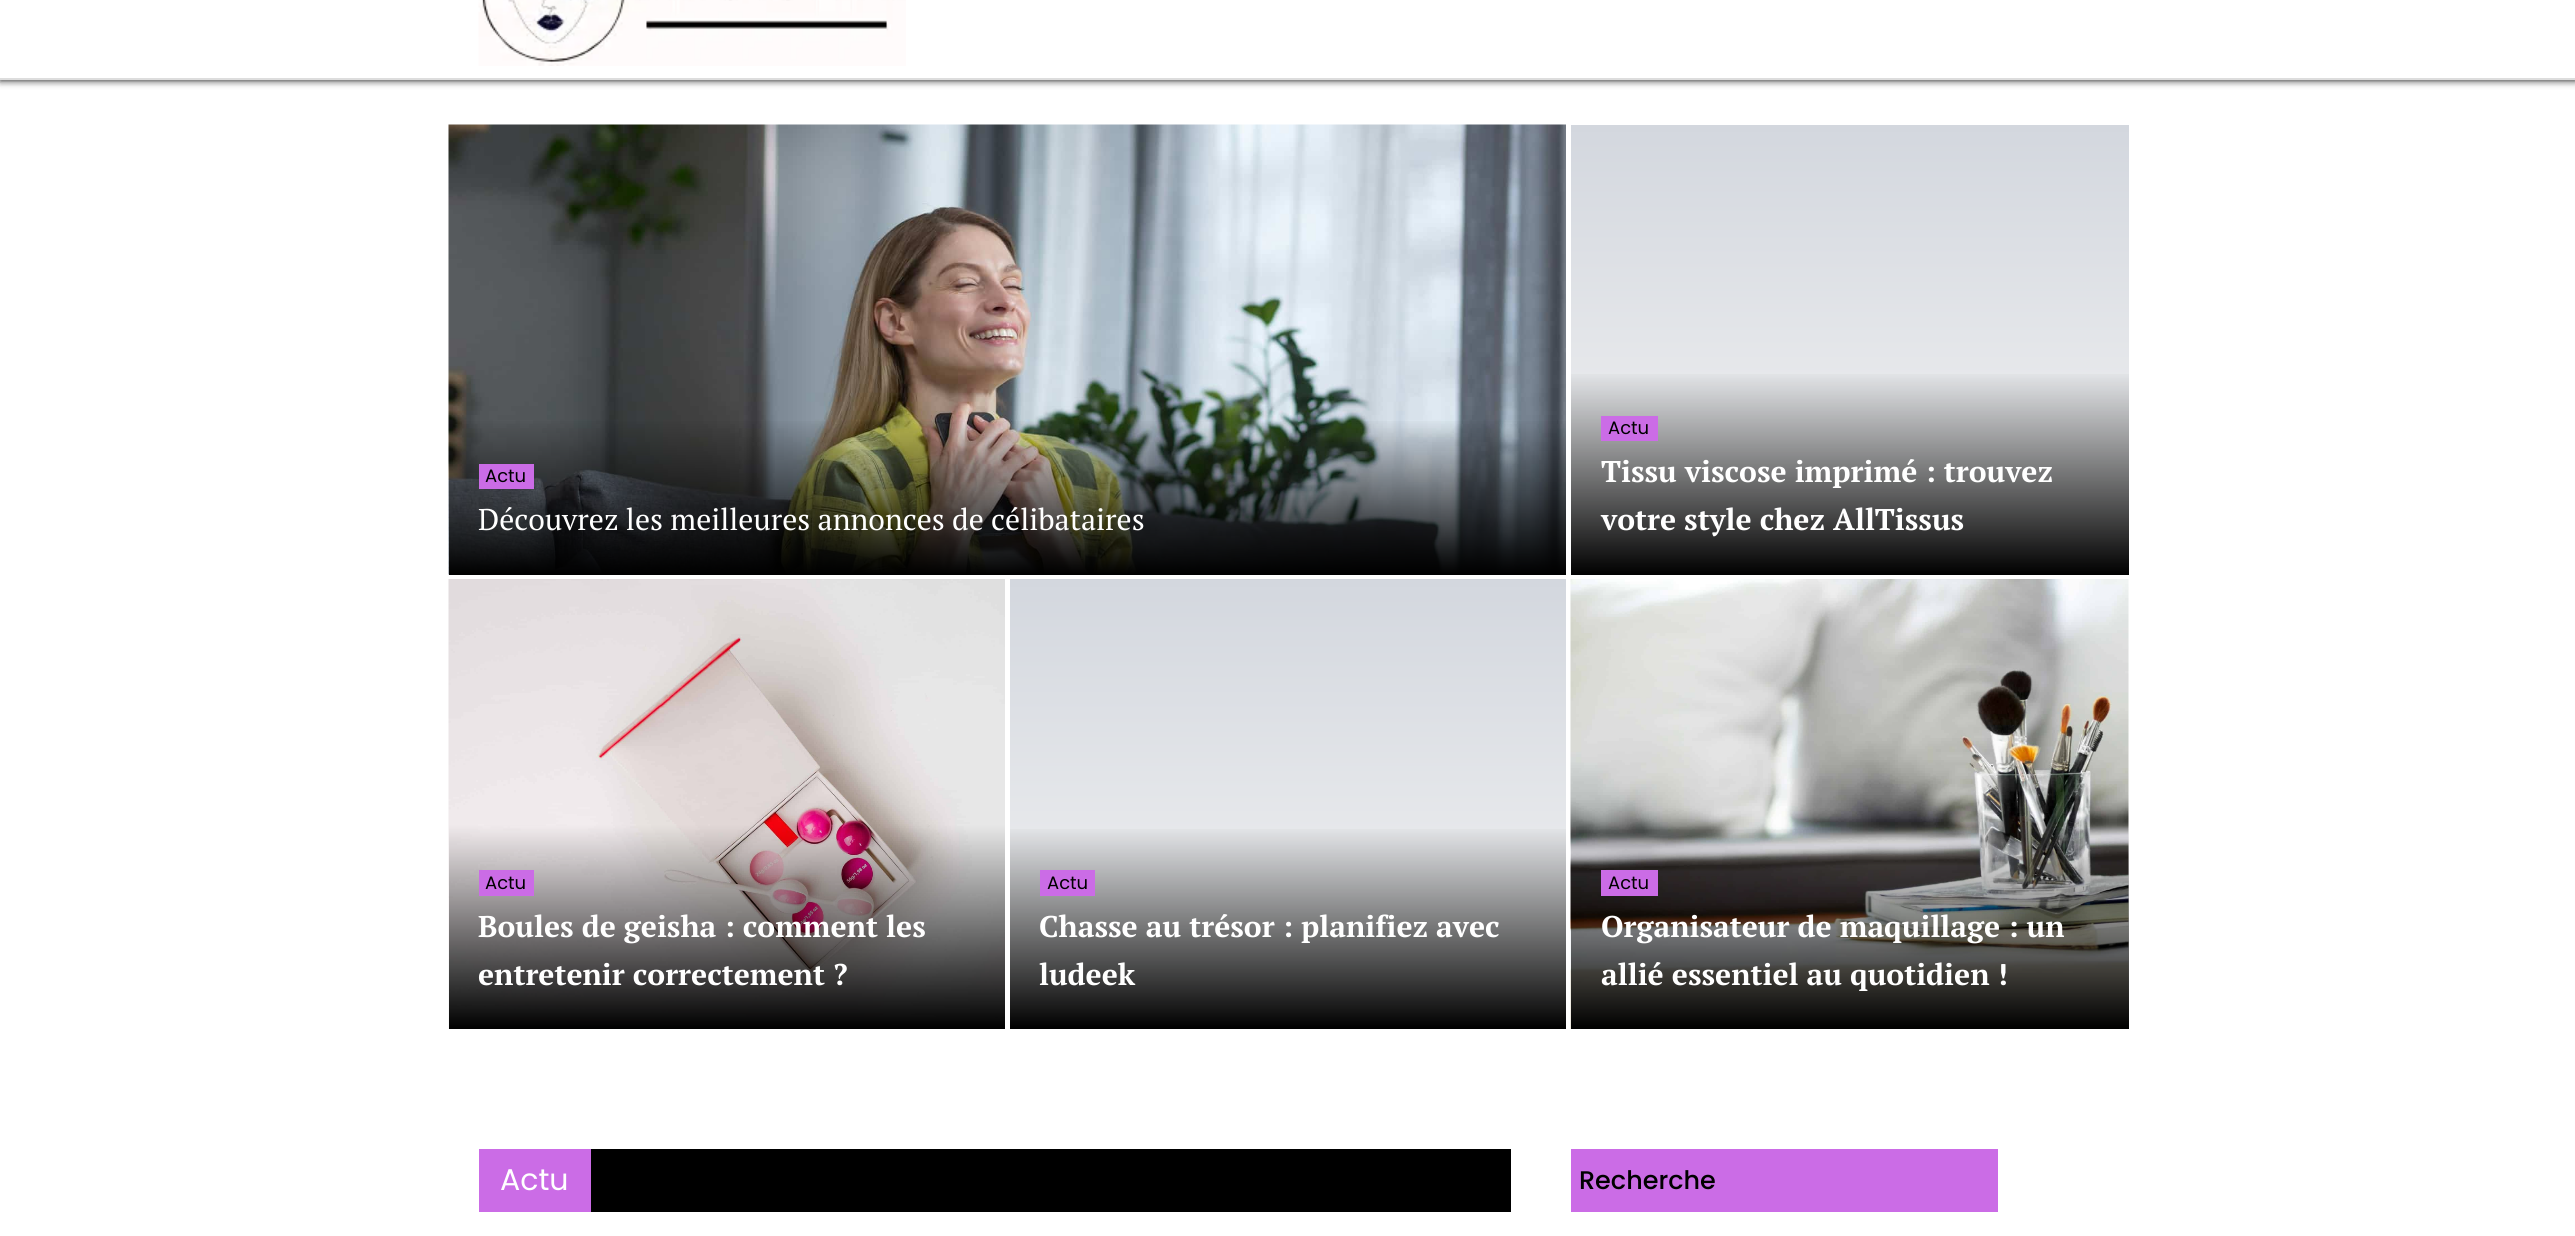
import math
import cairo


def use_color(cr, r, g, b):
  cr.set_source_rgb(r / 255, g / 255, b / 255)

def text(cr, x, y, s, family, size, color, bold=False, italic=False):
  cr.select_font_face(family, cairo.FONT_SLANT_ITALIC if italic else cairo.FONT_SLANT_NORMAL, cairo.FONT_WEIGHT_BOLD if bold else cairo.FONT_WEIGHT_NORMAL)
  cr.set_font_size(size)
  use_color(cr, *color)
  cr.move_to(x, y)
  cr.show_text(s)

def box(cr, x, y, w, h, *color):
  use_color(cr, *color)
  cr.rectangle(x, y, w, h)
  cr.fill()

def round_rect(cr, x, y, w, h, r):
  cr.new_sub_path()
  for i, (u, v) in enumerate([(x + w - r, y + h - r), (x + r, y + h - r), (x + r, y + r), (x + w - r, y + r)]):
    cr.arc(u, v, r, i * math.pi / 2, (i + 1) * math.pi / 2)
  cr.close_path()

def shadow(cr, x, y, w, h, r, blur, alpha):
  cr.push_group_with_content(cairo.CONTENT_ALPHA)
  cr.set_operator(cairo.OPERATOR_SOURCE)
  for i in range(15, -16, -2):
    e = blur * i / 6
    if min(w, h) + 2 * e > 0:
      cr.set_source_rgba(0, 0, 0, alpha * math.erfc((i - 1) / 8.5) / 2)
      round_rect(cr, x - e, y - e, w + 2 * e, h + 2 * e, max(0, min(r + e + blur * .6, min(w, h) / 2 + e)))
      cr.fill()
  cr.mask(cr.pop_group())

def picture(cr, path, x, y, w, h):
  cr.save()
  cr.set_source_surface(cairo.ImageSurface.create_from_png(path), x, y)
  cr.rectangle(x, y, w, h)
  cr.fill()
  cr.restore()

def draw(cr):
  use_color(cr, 255, 255, 255)
  cr.paint()
  use_color(cr, 0, 0, 0)
  shadow(cr, 0, -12, 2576, 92, 0, 4, 1)
  box(cr, 0, 0, 2575, 78, 255, 255, 255)
  box(cr, 0, 78, 2575, 2, 221, 221, 221)
  picture(cr, "img_01.png", 478, 0, 428, 66)
  picture(cr, "img_02.png", 448, 124, 1118, 451)
  gradient = cairo.LinearGradient(1007, 418, 1007, 575)
  gradient.add_color_stop_rgba(0, 0, 0, 0, 0)
  gradient.add_color_stop_rgba(1, 0, 0, 0, 1)
  cr.set_source(gradient)
  cr.rectangle(449, 421, 1117, 154)
  cr.fill()
  box(cr, 479, 464, 55, 25, 203, 108, 230)
  gradient = cairo.LinearGradient(1850, 124, 1850, 575)
  gradient.add_color_stop_rgba(0, 0.827, 0.843, 0.871, 1)
  gradient.add_color_stop_rgba(1, 0.961, 0.961, 0.961, 1)
  cr.set_source(gradient)
  cr.rectangle(1571, 125, 558, 449)
  cr.fill()
  gradient = cairo.LinearGradient(1850, 370, 1850, 575)
  gradient.add_color_stop_rgba(0, 0, 0, 0, 0)
  gradient.add_color_stop_rgba(1, 0, 0, 0, 1)
  cr.set_source(gradient)
  cr.rectangle(1571, 374, 558, 201)
  cr.fill()
  box(cr, 1601, 416, 57, 25, 203, 108, 230)
  picture(cr, "img_03.png", 448, 579, 557, 450)
  box(cr, 479, 870, 55, 26, 203, 108, 230)
  gradient = cairo.LinearGradient(1288, 579, 1288, 1029)
  gradient.add_color_stop_rgba(0, 0.827, 0.843, 0.871, 1)
  gradient.add_color_stop_rgba(1, 0.961, 0.961, 0.961, 1)
  cr.set_source(gradient)
  cr.rectangle(1010, 579, 556, 449)
  cr.fill()
  gradient = cairo.LinearGradient(1288, 825, 1288, 1029)
  gradient.add_color_stop_rgba(0, 0, 0, 0, 0)
  gradient.add_color_stop_rgba(1, 0, 0, 0, 1)
  cr.set_source(gradient)
  cr.rectangle(1010, 829, 556, 200)
  cr.fill()
  box(cr, 1040, 870, 55, 26, 203, 108, 230)
  picture(cr, "img_04.png", 1570, 579, 559, 450)
  gradient = cairo.LinearGradient(1850, 825, 1850, 1029)
  gradient.add_color_stop_rgba(0, 0, 0, 0, 0)
  gradient.add_color_stop_rgba(1, 0, 0, 0, 1)
  cr.set_source(gradient)
  cr.rectangle(1571, 829, 558, 200)
  cr.fill()
  box(cr, 1601, 870, 57, 26, 203, 108, 230)
  box(cr, 591, 1149, 920, 63, 0, 0, 0)
  box(cr, 479, 1149, 112, 63, 203, 108, 230)
  box(cr, 1571, 1149, 427, 63, 203, 108, 230)
  text(cr, 485, 482, "Actu", "Poppins", 18, (0, 0, 0))
  text(cr, 478, 530, "Découvrez les meilleures annonces de célibataires", "PT Serif", 30, (255, 255, 255))
  text(cr, 1608, 434, "Actu", "Poppins", 18, (0, 0, 0))
  text(cr, 1601, 482, "Tissu viscose imprimé : trouvez", "PT Serif", 30, (255, 255, 255), bold=True)
  text(cr, 1601, 530, "votre style chez AllTissus", "PT Serif", 30, (255, 255, 255), bold=True)
  text(cr, 485, 889, "Actu", "Poppins", 18, (0, 0, 0))
  text(cr, 478, 937, "Boules de geisha : comment les", "PT Serif", 30, (255, 255, 255), bold=True)
  text(cr, 478, 985, "entretenir correctement ?", "PT Serif", 30, (255, 255, 255), bold=True)
  text(cr, 1047, 889, "Actu", "Poppins", 18, (0, 0, 0))
  text(cr, 1039, 937, "Chasse au trésor : planifiez avec", "PT Serif", 30, (255, 255, 255), bold=True)
  text(cr, 1039, 985, "ludeek", "PT Serif", 30, (255, 255, 255), bold=True)
  text(cr, 1608, 889, "Actu", "Poppins", 18, (0, 0, 0))
  text(cr, 1601, 937, "Organisateur de maquillage : un", "PT Serif", 30, (255, 255, 255), bold=True)
  text(cr, 1601, 985, "allié essentiel au quotidien !", "PT Serif", 30, (255, 255, 255), bold=True)
  text(cr, 500, 1190, "Actu", "Poppins", 30, (255, 255, 255))
  text(cr, 1579, 1189, "Recherche", "Poppins Medium", 25.5, (0, 0, 0))


surface = cairo.ImageSurface(cairo.FORMAT_RGB24, 2575, 1236)
cr = cairo.Context(surface)
options = cairo.FontOptions()
options.set_hint_metrics(cairo.HINT_METRICS_OFF)
options.set_hint_style(cairo.HINT_STYLE_NONE)
cr.set_font_options(options)
cr.set_miter_limit(4)
draw(cr)
surface.write_to_png("out.png")
